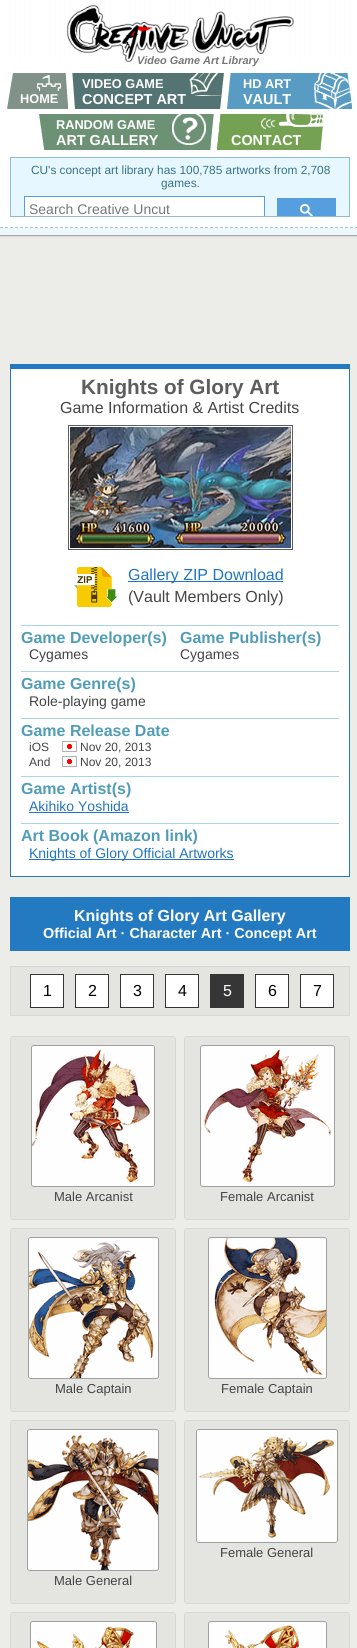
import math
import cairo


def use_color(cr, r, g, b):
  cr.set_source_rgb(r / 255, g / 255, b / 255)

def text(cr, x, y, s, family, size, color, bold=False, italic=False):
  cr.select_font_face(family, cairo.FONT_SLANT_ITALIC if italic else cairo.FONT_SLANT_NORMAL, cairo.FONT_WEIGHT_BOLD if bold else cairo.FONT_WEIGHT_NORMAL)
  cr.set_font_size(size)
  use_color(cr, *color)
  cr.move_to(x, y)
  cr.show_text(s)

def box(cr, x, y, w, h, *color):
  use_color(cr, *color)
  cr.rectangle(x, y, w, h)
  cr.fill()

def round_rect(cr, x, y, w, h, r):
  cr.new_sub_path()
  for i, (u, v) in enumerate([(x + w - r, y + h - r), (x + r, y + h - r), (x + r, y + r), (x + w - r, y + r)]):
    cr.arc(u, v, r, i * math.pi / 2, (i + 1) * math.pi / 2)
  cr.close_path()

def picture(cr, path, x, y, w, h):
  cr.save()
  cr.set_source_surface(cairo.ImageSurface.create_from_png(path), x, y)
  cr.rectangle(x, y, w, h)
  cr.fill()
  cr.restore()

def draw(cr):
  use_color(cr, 236, 237, 232)
  cr.paint()
  picture(cr, "img_01.png", 0, 0, 357, 238)
  picture(cr, "img_02.png", 66, 4, 228, 59)
  picture(cr, "img_03.png", 7, 73, 63, 36)
  picture(cr, "img_04.png", 71, 73, 155, 36)
  picture(cr, "img_05.png", 227, 73, 125, 36)
  picture(cr, "img_06.png", 37, 114, 179, 36)
  picture(cr, "img_07.png", 217, 114, 106, 36)
  use_color(cr, 230, 247, 255)
  cr.rectangle(10.5, 157.5, 339, 59)
  cr.fill_preserve()
  use_color(cr, 141, 189, 207)
  cr.set_line_width(1)
  cr.stroke()
  box(cr, 25, 197, 239, 19, 255, 255, 255)
  cr.save()
  cr.rectangle(11, 158, 338, 58)
  cr.clip()
  cr.rectangle(24.5, 196.5, 240, 27)
  use_color(cr, 85, 159, 224)
  cr.stroke()
  cr.restore()
  box(cr, 277, 198, 59, 18, 85, 159, 224)
  picture(cr, "img_08.png", 300, 204, 13, 12)
  box(cr, 11, 369, 338, 507, 255, 255, 255)
  box(cr, 10, 364, 340, 5, 36, 122, 193)
  box(cr, 349, 364, 1, 513, 36, 122, 193)
  box(cr, 10, 876, 340, 1, 36, 122, 193)
  box(cr, 10, 364, 1, 513, 36, 122, 193)
  cr.rectangle(68.5, 425.5, 224, 124)
  use_color(cr, 93, 93, 93)
  cr.stroke()
  picture(cr, "img_09.png", 69, 426, 223, 123)
  picture(cr, "img_10.png", 74, 567, 44, 40)
  box(cr, 128, 581, 155, 1, 33, 118, 191)
  box(cr, 21, 625, 318, 1, 168, 213, 232)
  box(cr, 21, 671, 318, 1, 168, 213, 232)
  box(cr, 21, 718, 318, 1, 168, 213, 232)
  picture(cr, "img_11.png", 62, 741, 15, 11)
  picture(cr, "img_11.png", 62, 756, 15, 11)
  box(cr, 21, 776, 318, 1, 168, 213, 232)
  box(cr, 29, 812, 100, 1, 33, 118, 191)
  box(cr, 21, 823, 318, 1, 168, 213, 232)
  box(cr, 29, 859, 205, 1, 33, 118, 191)
  box(cr, 10, 897, 340, 54, 36, 122, 193)
  use_color(cr, 228, 229, 225)
  cr.rectangle(10.5, 966.5, 339, 49)
  cr.fill_preserve()
  use_color(cr, 215, 215, 215)
  cr.stroke()
  use_color(cr, 255, 255, 255)
  cr.rectangle(30.5, 974.5, 33, 33)
  cr.fill_preserve()
  use_color(cr, 54, 54, 54)
  cr.stroke()
  use_color(cr, 255, 255, 255)
  cr.rectangle(75.5, 974.5, 33, 33)
  cr.fill_preserve()
  use_color(cr, 54, 54, 54)
  cr.stroke()
  use_color(cr, 255, 255, 255)
  cr.rectangle(120.5, 974.5, 33, 33)
  cr.fill_preserve()
  use_color(cr, 54, 54, 54)
  cr.stroke()
  use_color(cr, 255, 255, 255)
  cr.rectangle(165.5, 974.5, 33, 33)
  cr.fill_preserve()
  use_color(cr, 54, 54, 54)
  cr.stroke()
  box(cr, 210, 974, 34, 34, 54, 54, 54)
  use_color(cr, 255, 255, 255)
  cr.rectangle(255.5, 974.5, 33, 33)
  cr.fill_preserve()
  use_color(cr, 54, 54, 54)
  cr.stroke()
  use_color(cr, 255, 255, 255)
  cr.rectangle(300.5, 974.5, 33, 33)
  cr.fill_preserve()
  use_color(cr, 54, 54, 54)
  cr.stroke()
  use_color(cr, 228, 229, 225)
  round_rect(cr, 10.5, 1036.5, 165, 183, 2.5)
  cr.fill_preserve()
  use_color(cr, 215, 215, 215)
  cr.stroke()
  round_rect(cr, 31.5, 1045.5, 123, 141, 2.5)
  use_color(cr, 159, 159, 159)
  cr.stroke()
  picture(cr, "img_12.png", 32, 1046, 122, 140)
  use_color(cr, 228, 229, 225)
  round_rect(cr, 184.5, 1036.5, 165, 183, 2.5)
  cr.fill_preserve()
  use_color(cr, 215, 215, 215)
  cr.stroke()
  round_rect(cr, 200.5, 1045.5, 134, 141, 2.5)
  use_color(cr, 159, 159, 159)
  cr.stroke()
  picture(cr, "img_13.png", 201, 1046, 133, 140)
  use_color(cr, 228, 229, 225)
  round_rect(cr, 10.5, 1228.5, 165, 183, 2.5)
  cr.fill_preserve()
  use_color(cr, 215, 215, 215)
  cr.stroke()
  round_rect(cr, 28.5, 1237.5, 130, 141, 2.5)
  use_color(cr, 159, 159, 159)
  cr.stroke()
  picture(cr, "img_14.png", 29, 1238, 129, 140)
  use_color(cr, 228, 229, 225)
  round_rect(cr, 184.5, 1228.5, 165, 183, 2.5)
  cr.fill_preserve()
  use_color(cr, 215, 215, 215)
  cr.stroke()
  round_rect(cr, 208.5, 1237.5, 118, 141, 2.5)
  use_color(cr, 159, 159, 159)
  cr.stroke()
  picture(cr, "img_15.png", 209, 1238, 117, 140)
  use_color(cr, 228, 229, 225)
  round_rect(cr, 184.5, 1420.5, 165, 183, 2.5)
  cr.fill_preserve()
  use_color(cr, 215, 215, 215)
  cr.stroke()
  round_rect(cr, 196.5, 1429.5, 141, 113, 2.5)
  use_color(cr, 159, 159, 159)
  cr.stroke()
  picture(cr, "img_16.png", 197, 1430, 140, 112)
  use_color(cr, 228, 229, 225)
  round_rect(cr, 10.5, 1420.5, 165, 183, 2.5)
  cr.fill_preserve()
  use_color(cr, 215, 215, 215)
  cr.stroke()
  round_rect(cr, 27.5, 1429.5, 131, 141, 2.5)
  use_color(cr, 159, 159, 159)
  cr.stroke()
  picture(cr, "img_17.png", 28, 1430, 130, 140)
  use_color(cr, 228, 229, 225)
  round_rect(cr, 10.5, 1612.5, 165, 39, 2.5)
  cr.fill_preserve()
  use_color(cr, 215, 215, 215)
  cr.stroke()
  round_rect(cr, 30.5, 1621.5, 126, 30, 2.5)
  use_color(cr, 159, 159, 159)
  cr.stroke()
  picture(cr, "img_18.png", 31, 1622, 125, 26)
  use_color(cr, 228, 229, 225)
  round_rect(cr, 184.5, 1612.5, 165, 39, 2.5)
  cr.fill_preserve()
  use_color(cr, 215, 215, 215)
  cr.stroke()
  round_rect(cr, 208.5, 1621.5, 118, 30, 2.5)
  use_color(cr, 159, 159, 159)
  cr.stroke()
  picture(cr, "img_19.png", 209, 1622, 117, 26)
  text(cr, 137, 64, "Video Game Art Library", "Liberation Sans", 10.9, (119, 119, 119), bold=True, italic=True)
  text(cr, 20, 103, "HOME", "Liberation Sans", 12.75, (255, 255, 255), bold=True)
  text(cr, 82, 88, "VIDEO GAME", "Liberation Sans", 12.75, (255, 255, 255), bold=True)
  text(cr, 82, 104, "CONCEPT ART", "Liberation Sans", 14.4, (255, 255, 255), bold=True)
  text(cr, 243, 88, "HD ART", "Liberation Sans", 12.75, (255, 255, 255), bold=True)
  text(cr, 243, 104, "VAULT", "Liberation Sans", 14.4, (255, 255, 255), bold=True)
  text(cr, 56, 129, "RANDOM GAME", "Liberation Sans", 12.75, (255, 255, 255), bold=True)
  text(cr, 56, 145, "ART GALLERY", "Liberation Sans", 14.4, (255, 255, 255), bold=True)
  text(cr, 231, 145, "CONTACT", "Liberation Sans", 14.4, (255, 255, 255), bold=True)
  text(cr, 31, 174, "CU's concept art library has 100,785 artworks from 2,708", "Liberation Sans", 11.85, (55, 114, 136))
  text(cr, 161, 187, "games.", "Liberation Sans", 11.85, (55, 114, 136))
  text(cr, 29, 214, "Search Creative Uncut", "Liberation Sans", 14, (119, 119, 119))
  text(cr, 81, 394, "Knights of Glory Art", "Liberation Sans", 20.75, (93, 93, 93), bold=True)
  text(cr, 60, 413, "Game Information & Artist Credits", "Liberation Sans", 16, (68, 68, 68))
  text(cr, 128, 580, "Gallery ZIP Download", "Liberation Sans", 16, (33, 118, 191))
  text(cr, 128, 602, "(Vault Members Only)", "Liberation Sans", 16, (68, 68, 68))
  text(cr, 21, 643, "Game Developer(s)", "Liberation Sans", 16, (81, 157, 184), bold=True)
  text(cr, 180, 643, "Game Publisher(s)", "Liberation Sans", 16, (81, 157, 184), bold=True)
  text(cr, 29, 659, "Cygames", "Liberation Sans", 14, (68, 68, 68))
  text(cr, 180, 659, "Cygames", "Liberation Sans", 14, (68, 68, 68))
  text(cr, 21, 689, "Game Genre(s)", "Liberation Sans", 16, (81, 157, 184), bold=True)
  text(cr, 29, 706, "Role-playing game", "Liberation Sans", 14, (68, 68, 68))
  text(cr, 21, 736, "Game Release Date", "Liberation Sans", 16, (81, 157, 184), bold=True)
  text(cr, 29, 751, "iOS", "Liberation Sans", 12, (68, 68, 68))
  text(cr, 80, 751, "Nov 20, 2013", "Liberation Sans", 12, (68, 68, 68))
  text(cr, 29, 766, "And", "Liberation Sans", 12, (68, 68, 68))
  text(cr, 80, 766, "Nov 20, 2013", "Liberation Sans", 12, (68, 68, 68))
  text(cr, 21, 794, "Game Artist(s)", "Liberation Sans", 16, (81, 157, 184), bold=True)
  text(cr, 29, 811, "Akihiko Yoshida", "Liberation Sans", 14, (33, 118, 191))
  text(cr, 21, 841, "Art Book (Amazon link)", "Liberation Sans", 16, (81, 157, 184), bold=True)
  text(cr, 29, 858, "Knights of Glory Official Artworks", "Liberation Sans", 14, (33, 118, 191))
  text(cr, 74, 921, "Knights of Glory Art Gallery", "Liberation Sans", 16, (255, 255, 255), bold=True)
  text(cr, 43, 938, "Official Art · Character Art · Concept Art", "Liberation Sans", 14.4, (255, 255, 255), bold=True)
  text(cr, 43, 996, "1", "Liberation Sans", 16, (0, 0, 0))
  text(cr, 88, 996, "2", "Liberation Sans", 16, (0, 0, 0))
  text(cr, 133, 996, "3", "Liberation Sans", 16, (0, 0, 0))
  text(cr, 178, 996, "4", "Liberation Sans", 16, (0, 0, 0))
  text(cr, 223, 996, "5", "Liberation Sans", 16, (255, 255, 255))
  text(cr, 268, 996, "6", "Liberation Sans", 16, (0, 0, 0))
  text(cr, 313, 996, "7", "Liberation Sans", 16, (0, 0, 0))
  text(cr, 54, 1201, "Male Arcanist", "Liberation Sans", 13, (68, 68, 68))
  text(cr, 220, 1201, "Female Arcanist", "Liberation Sans", 13, (68, 68, 68))
  text(cr, 55, 1393, "Male Captain", "Liberation Sans", 13, (68, 68, 68))
  text(cr, 221, 1393, "Female Captain", "Liberation Sans", 13, (68, 68, 68))
  text(cr, 220, 1557, "Female General", "Liberation Sans", 13, (68, 68, 68))
  text(cr, 54, 1585, "Male General", "Liberation Sans", 13, (68, 68, 68))


surface = cairo.ImageSurface(cairo.FORMAT_RGB24, 357, 1648)
cr = cairo.Context(surface)
options = cairo.FontOptions()
options.set_hint_metrics(cairo.HINT_METRICS_OFF)
options.set_hint_style(cairo.HINT_STYLE_NONE)
cr.set_font_options(options)
cr.set_miter_limit(4)
draw(cr)
surface.write_to_png("out.png")
